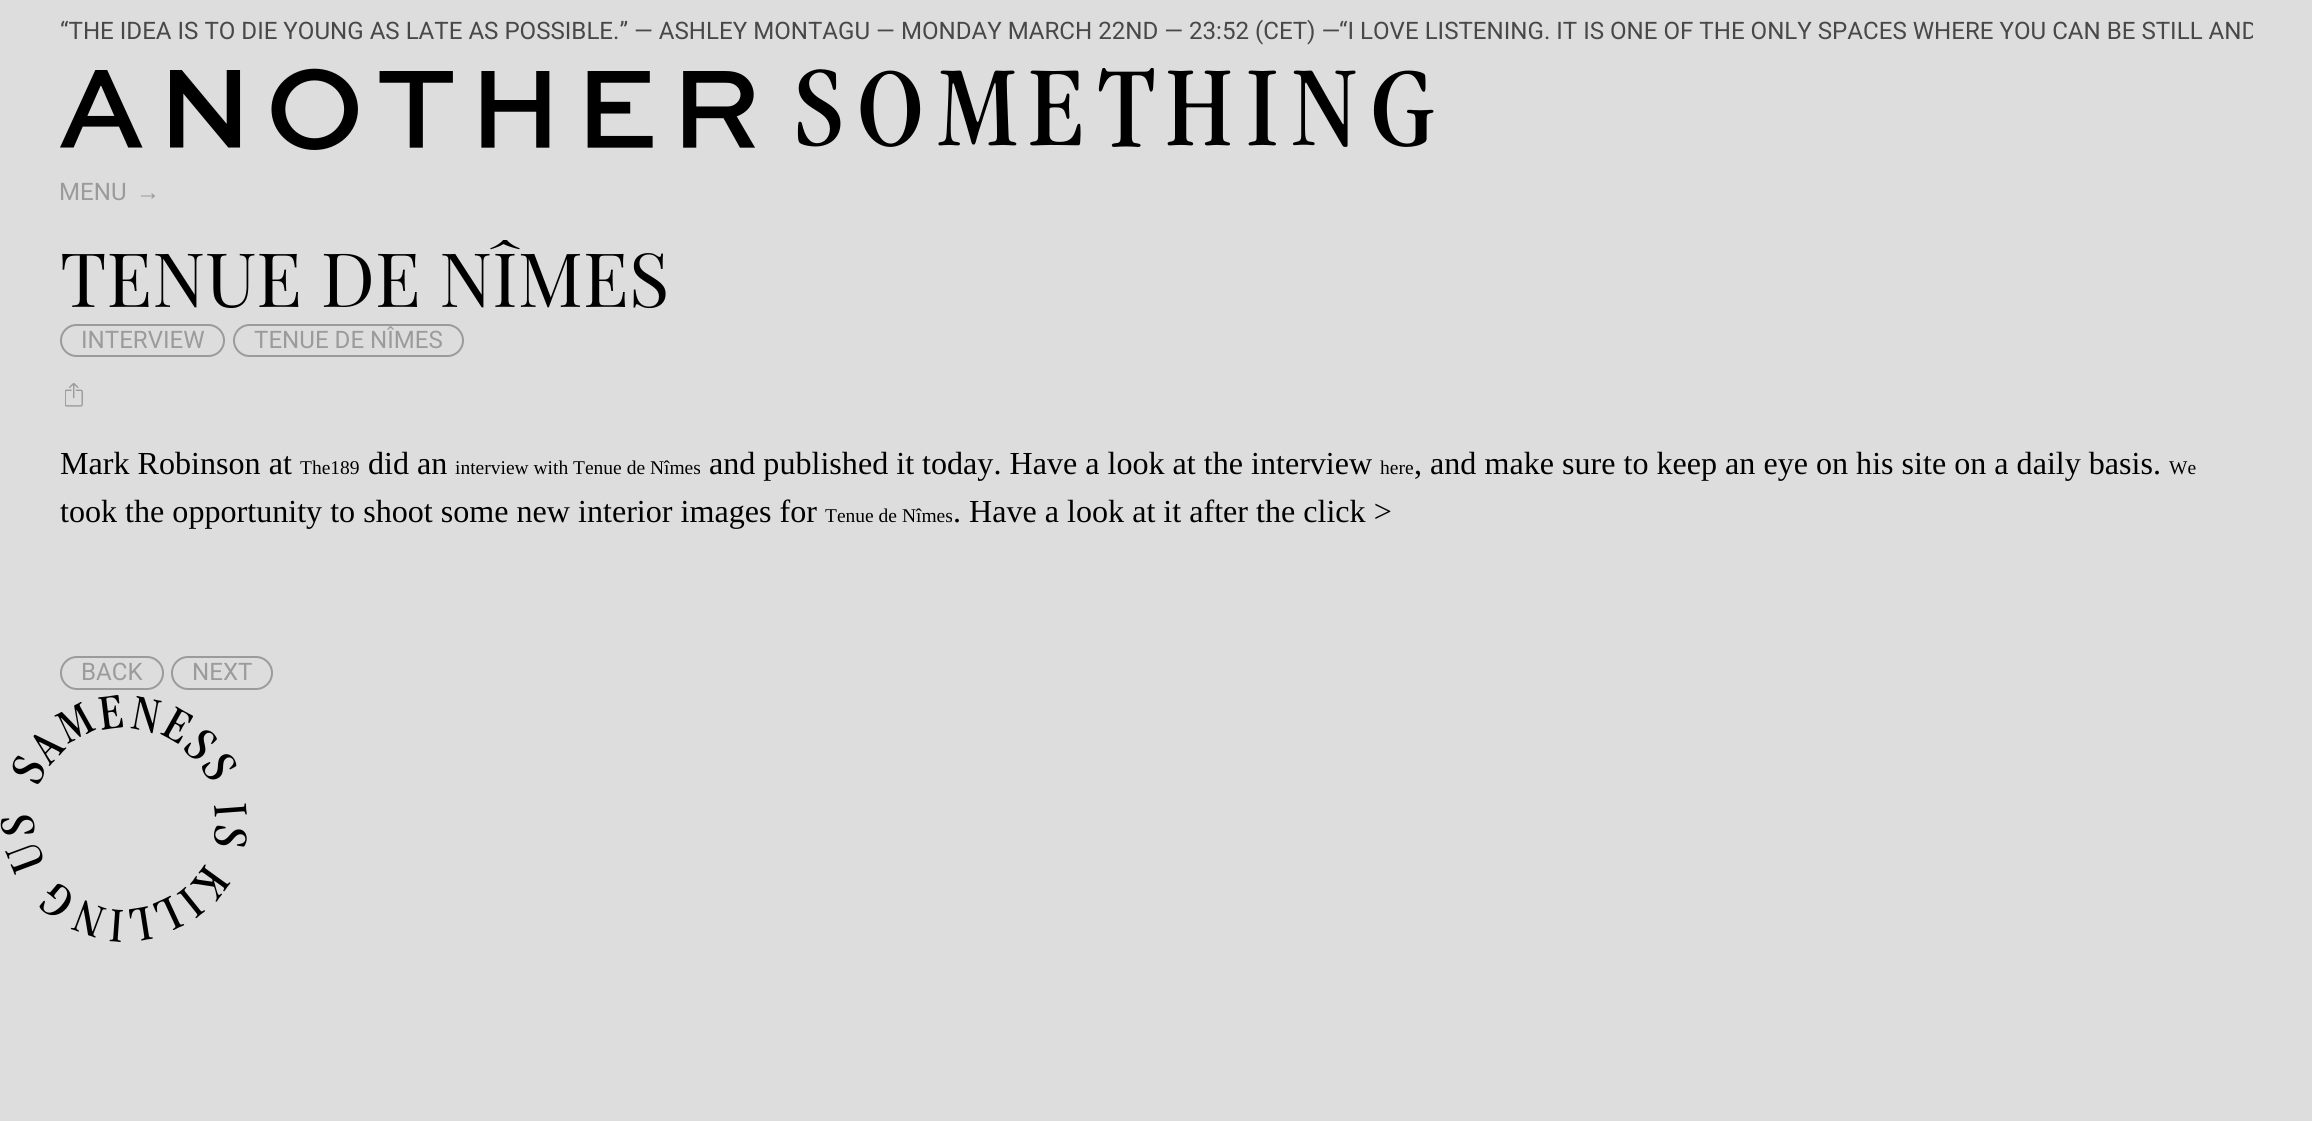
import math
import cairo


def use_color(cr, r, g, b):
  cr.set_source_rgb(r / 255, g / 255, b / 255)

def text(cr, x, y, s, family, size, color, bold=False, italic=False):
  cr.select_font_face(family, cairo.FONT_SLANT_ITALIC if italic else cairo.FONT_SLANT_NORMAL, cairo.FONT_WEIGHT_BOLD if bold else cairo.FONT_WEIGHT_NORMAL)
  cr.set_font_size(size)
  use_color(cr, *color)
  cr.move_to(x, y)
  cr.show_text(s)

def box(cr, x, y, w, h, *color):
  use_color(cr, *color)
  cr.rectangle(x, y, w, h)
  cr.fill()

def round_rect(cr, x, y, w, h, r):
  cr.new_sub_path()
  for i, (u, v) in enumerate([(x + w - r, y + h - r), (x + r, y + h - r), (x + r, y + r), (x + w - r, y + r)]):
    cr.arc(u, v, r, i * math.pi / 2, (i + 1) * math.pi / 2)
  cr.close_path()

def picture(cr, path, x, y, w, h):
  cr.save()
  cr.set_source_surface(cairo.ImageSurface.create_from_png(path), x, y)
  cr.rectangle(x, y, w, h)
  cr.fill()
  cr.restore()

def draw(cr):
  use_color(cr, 221, 221, 221)
  cr.paint()
  picture(cr, "img_01.png", 60, 68, 1374, 82)
  round_rect(cr, 61, 325, 163, 31, 15.5)
  use_color(cr, 155, 155, 155)
  cr.stroke()
  round_rect(cr, 234, 325, 229, 31, 15.5)
  cr.stroke()
  picture(cr, "img_02.png", 65, 383, 18, 24)
  round_rect(cr, 61, 657, 102, 32, 16)
  cr.stroke()
  round_rect(cr, 172, 657, 100, 32, 16)
  cr.stroke()
  picture(cr, "img_03.png", 0, 695, 247, 247)
  text(cr, 60, 39, "“THE IDEA IS TO DIE YOUNG AS LATE AS POSSIBLE.” — ASHLEY MONTAGU — MONDAY MARCH 22ND — 23:52 (CET) —", "Roboto", 24.1, (72, 72, 72))
  cr.save()
  cr.rectangle(60, 18, 2193, 27)
  cr.clip()
  text(cr, 1339, 39, "“I LOVE LISTENING. IT IS ONE OF THE ONLY SPACES WHERE YOU CAN BE STILL AND", "Roboto", 24.1, (72, 72, 72))
  cr.restore()
  text(cr, 59, 200, "MENU", "Roboto", 24.1, (155, 155, 155))
  text(cr, 136, 200, "→", "Liberation Serif", 24.1, (155, 155, 155))
  text(cr, 60, 307, "TENUE DE NÎMES", "Playfair Display", 75, (0, 0, 0))
  box(cr, 503, 238, 4, 2, 221, 221, 221)
  text(cr, 81, 348, "INTERVIEW", "Roboto", 24.1, (155, 155, 155))
  text(cr, 254, 348, "TENUE DE NÎMES", "Roboto", 24.1, (155, 155, 155))
  text(cr, 60, 474, "Mark Robinson at", "Liberation Serif", 32.1, (0, 0, 0))
  text(cr, 300, 474, "The189", "Liberation Serif", 19.5, (0, 0, 0))
  text(cr, 368, 474, "did an", "Liberation Serif", 32.1, (0, 0, 0))
  text(cr, 455, 474, "interview with Tenue de Nîmes", "Liberation Serif", 19.5, (0, 0, 0))
  text(cr, 709, 474, "and published it today. Have a look at the interview", "Liberation Serif", 32.1, (0, 0, 0))
  text(cr, 1380, 474, "here", "Liberation Serif", 19.5, (0, 0, 0))
  text(cr, 1414, 474, ", and make sure to keep an eye on his site on a daily basis.", "Liberation Serif", 32.1, (0, 0, 0))
  text(cr, 2169, 474, "We", "Liberation Serif", 19.5, (0, 0, 0))
  text(cr, 60, 522, "took the opportunity to shoot some new interior images for", "Liberation Serif", 32.1, (0, 0, 0))
  text(cr, 825, 522, "Tenue de Nîmes", "Liberation Serif", 19.5, (0, 0, 0))
  text(cr, 953, 522, ". Have a look at it after the click >", "Liberation Serif", 32.1, (0, 0, 0))
  text(cr, 81, 680, "BACK", "Roboto", 24.1, (155, 155, 155))
  text(cr, 192, 680, "NEXT", "Roboto", 24.1, (155, 155, 155))


surface = cairo.ImageSurface(cairo.FORMAT_RGB24, 2312, 1121)
cr = cairo.Context(surface)
options = cairo.FontOptions()
options.set_hint_metrics(cairo.HINT_METRICS_OFF)
options.set_hint_style(cairo.HINT_STYLE_NONE)
cr.set_font_options(options)
cr.set_miter_limit(4)
draw(cr)
surface.write_to_png("out.png")
